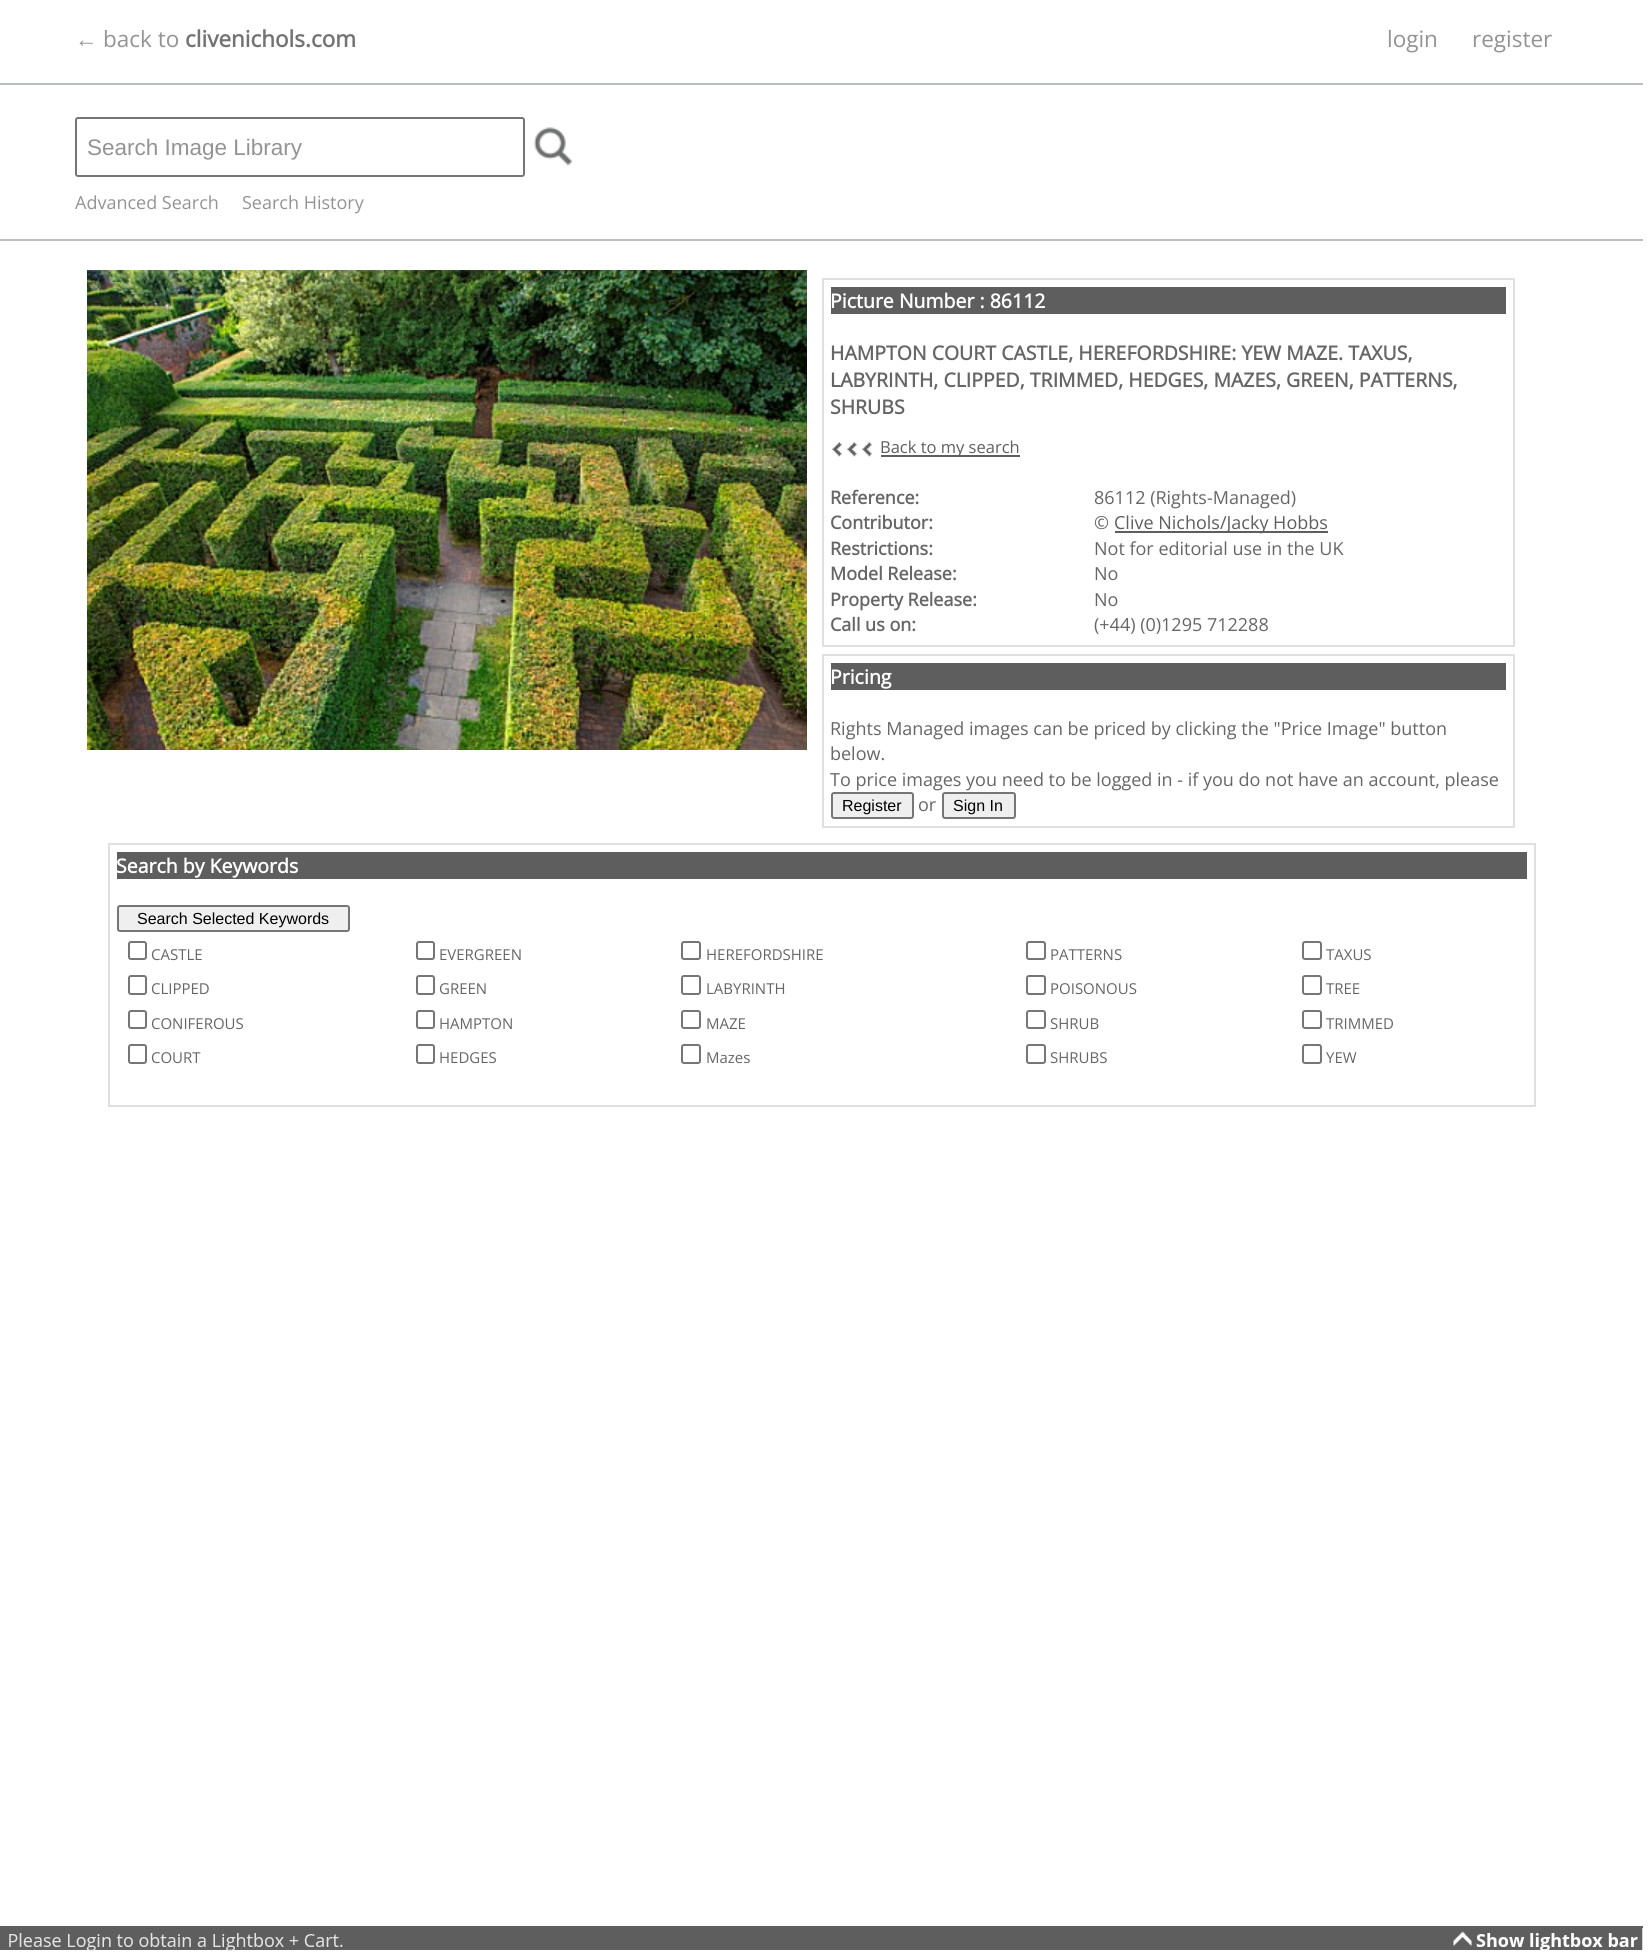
import math
import cairo


def use_color(cr, r, g, b):
  cr.set_source_rgb(r / 255, g / 255, b / 255)

def text(cr, x, y, s, family, size, color, bold=False, italic=False):
  cr.select_font_face(family, cairo.FONT_SLANT_ITALIC if italic else cairo.FONT_SLANT_NORMAL, cairo.FONT_WEIGHT_BOLD if bold else cairo.FONT_WEIGHT_NORMAL)
  cr.set_font_size(size)
  use_color(cr, *color)
  cr.move_to(x, y)
  cr.show_text(s)

def box(cr, x, y, w, h, *color):
  use_color(cr, *color)
  cr.rectangle(x, y, w, h)
  cr.fill()

def round_rect(cr, x, y, w, h, r):
  cr.new_sub_path()
  for i, (u, v) in enumerate([(x + w - r, y + h - r), (x + r, y + h - r), (x + r, y + r), (x + w - r, y + r)]):
    cr.arc(u, v, r, i * math.pi / 2, (i + 1) * math.pi / 2)
  cr.close_path()

def picture(cr, path, x, y, w, h):
  cr.save()
  cr.set_source_surface(cairo.ImageSurface.create_from_png(path), x, y)
  cr.rectangle(x, y, w, h)
  cr.fill()
  cr.restore()

def draw(cr):
  use_color(cr, 255, 255, 255)
  cr.paint()
  box(cr, 0, 239, 1643, 2, 186, 192, 192)
  box(cr, 0, 83, 1643, 2, 186, 192, 192)
  round_rect(cr, 76, 118, 448, 58, 2)
  use_color(cr, 118, 118, 118)
  cr.stroke()
  picture(cr, "img_01.png", 533, 127, 40, 39)
  picture(cr, "img_02.png", 87, 270, 720, 480)
  cr.rectangle(823, 279, 691, 367)
  use_color(cr, 223, 223, 223)
  cr.stroke()
  box(cr, 831, 287, 675, 27, 94, 94, 94)
  picture(cr, "img_03.png", 832, 442, 10, 15)
  picture(cr, "img_03.png", 847, 442, 10, 15)
  picture(cr, "img_03.png", 862, 442, 10, 15)
  box(cr, 881, 455, 139, 2, 94, 94, 94)
  box(cr, 1115, 531, 213, 2, 94, 94, 94)
  cr.rectangle(823, 655, 691, 172)
  use_color(cr, 223, 223, 223)
  cr.stroke()
  box(cr, 831, 663, 675, 27, 94, 94, 94)
  use_color(cr, 239, 239, 239)
  round_rect(cr, 832, 793, 81, 25, 2)
  cr.fill_preserve()
  use_color(cr, 118, 118, 118)
  cr.stroke()
  use_color(cr, 239, 239, 239)
  round_rect(cr, 943, 793, 72, 25, 2)
  cr.fill_preserve()
  use_color(cr, 118, 118, 118)
  cr.stroke()
  cr.rectangle(109, 844, 1426, 262)
  use_color(cr, 223, 223, 223)
  cr.stroke()
  box(cr, 117, 852, 1410, 27, 94, 94, 94)
  use_color(cr, 239, 239, 239)
  round_rect(cr, 118, 906, 231, 25, 2)
  cr.fill_preserve()
  use_color(cr, 118, 118, 118)
  cr.stroke()
  round_rect(cr, 129, 942, 17, 17, 2)
  cr.stroke()
  round_rect(cr, 417, 942, 17, 17, 2)
  cr.stroke()
  round_rect(cr, 682, 942, 18, 17, 2)
  cr.stroke()
  round_rect(cr, 1027, 942, 18, 17, 2)
  cr.stroke()
  round_rect(cr, 1303, 942, 18, 17, 2)
  cr.stroke()
  round_rect(cr, 129, 976, 17, 18, 2)
  cr.stroke()
  round_rect(cr, 417, 976, 17, 18, 2)
  cr.stroke()
  round_rect(cr, 682, 976, 18, 18, 2)
  cr.stroke()
  round_rect(cr, 1027, 976, 18, 18, 2)
  cr.stroke()
  round_rect(cr, 1303, 976, 18, 18, 2)
  cr.stroke()
  round_rect(cr, 129, 1011, 17, 17, 2)
  cr.stroke()
  round_rect(cr, 417, 1011, 17, 17, 2)
  cr.stroke()
  round_rect(cr, 682, 1011, 18, 17, 2)
  cr.stroke()
  round_rect(cr, 1027, 1011, 18, 17, 2)
  cr.stroke()
  round_rect(cr, 1303, 1011, 18, 17, 2)
  cr.stroke()
  round_rect(cr, 129, 1045, 17, 18, 2)
  cr.stroke()
  round_rect(cr, 417, 1045, 17, 18, 2)
  cr.stroke()
  round_rect(cr, 682, 1045, 18, 18, 2)
  cr.stroke()
  round_rect(cr, 1027, 1045, 18, 18, 2)
  cr.stroke()
  round_rect(cr, 1303, 1045, 18, 18, 2)
  cr.stroke()
  box(cr, 0, 1926, 1643, 2, 94, 94, 94)
  picture(cr, "img_04.png", 0, 1928, 1643, 23)
  text(cr, 75, 47, "←", "Liberation Sans", 22.5, (147, 147, 147))
  text(cr, 103, 47, "back to", "Open Sans", 22.5, (147, 147, 147))
  text(cr, 185, 47, "clivenichols.com", "Open Sans", 22.5, (115, 115, 115), bold=True)
  text(cr, 1387, 47, "login", "Open Sans", 22.5, (147, 147, 147))
  text(cr, 1472, 47, "register", "Open Sans", 22.5, (147, 147, 147))
  text(cr, 87, 155, "Search Image Library", "Liberation Sans", 22.5, (147, 147, 147))
  text(cr, 75, 209, "Advanced Search", "Open Sans", 18, (147, 147, 147))
  text(cr, 242, 209, "Search History", "Open Sans", 18, (147, 147, 147))
  text(cr, 830, 308, "Picture Number : 86112", "Open Sans", 19.5, (255, 255, 255), bold=True)
  text(cr, 830, 360, "HAMPTON COURT CASTLE, HEREFORDSHIRE: YEW MAZE. TAXUS,", "Open Sans", 19.5, (102, 102, 102), bold=True)
  text(cr, 830, 387, "LABYRINTH, CLIPPED, TRIMMED, HEDGES, MAZES, GREEN, PATTERNS,", "Open Sans", 19.5, (102, 102, 102), bold=True)
  text(cr, 830, 414, "SHRUBS", "Open Sans", 19.5, (102, 102, 102), bold=True)
  text(cr, 880, 453, "Back to my search", "Open Sans", 16.5, (94, 94, 94))
  text(cr, 830, 504, "Reference:", "Open Sans", 18, (102, 102, 102), bold=True)
  text(cr, 1094, 504, "86112 (Rights-Managed)", "Open Sans", 18, (102, 102, 102))
  text(cr, 830, 529, "Contributor:", "Open Sans", 18, (102, 102, 102), bold=True)
  text(cr, 1094, 529, "©", "Open Sans", 18, (102, 102, 102))
  text(cr, 1114, 529, "Clive Nichols/Jacky Hobbs", "Open Sans", 18, (94, 94, 94))
  text(cr, 830, 555, "Restrictions:", "Open Sans", 18, (102, 102, 102), bold=True)
  text(cr, 1094, 555, "Not for editorial use in the UK", "Open Sans", 18, (102, 102, 102))
  text(cr, 830, 580, "Model Release:", "Open Sans", 18, (102, 102, 102), bold=True)
  text(cr, 1094, 580, "No", "Open Sans", 18, (102, 102, 102))
  text(cr, 830, 606, "Property Release:", "Open Sans", 18, (102, 102, 102), bold=True)
  text(cr, 1094, 606, "No", "Open Sans", 18, (102, 102, 102))
  text(cr, 830, 631, "Call us on:", "Open Sans", 18, (102, 102, 102), bold=True)
  text(cr, 1094, 631, "(+44) (0)1295 712288", "Open Sans", 18, (102, 102, 102))
  text(cr, 830, 684, "Pricing", "Open Sans", 19.5, (255, 255, 255), bold=True)
  text(cr, 830, 735, "Rights Managed images can be priced by clicking the \"Price Image\" button", "Open Sans", 18, (102, 102, 102))
  text(cr, 830, 760, "below.", "Open Sans", 18, (102, 102, 102))
  text(cr, 830, 786, "To price images you need to be logged in - if you do not have an account, please", "Open Sans", 18, (102, 102, 102))
  text(cr, 842, 811, "Register", "Liberation Sans", 16, (0, 0, 0))
  text(cr, 918, 811, "or", "Open Sans", 18, (102, 102, 102))
  text(cr, 953, 811, "Sign In", "Liberation Sans", 16, (0, 0, 0))
  text(cr, 116, 873, "Search by Keywords", "Open Sans", 19.5, (255, 255, 255), bold=True)
  text(cr, 137, 924, "Search Selected Keywords", "Liberation Sans", 16, (0, 0, 0))
  text(cr, 151, 960, "CASTLE", "Open Sans", 15, (102, 102, 102))
  text(cr, 439, 960, "EVERGREEN", "Open Sans", 15, (102, 102, 102))
  text(cr, 706, 960, "HEREFORDSHIRE", "Open Sans", 15, (102, 102, 102))
  text(cr, 1050, 960, "PATTERNS", "Open Sans", 15, (102, 102, 102))
  text(cr, 1326, 960, "TAXUS", "Open Sans", 15, (102, 102, 102))
  text(cr, 151, 994, "CLIPPED", "Open Sans", 15, (102, 102, 102))
  text(cr, 439, 994, "GREEN", "Open Sans", 15, (102, 102, 102))
  text(cr, 706, 994, "LABYRINTH", "Open Sans", 15, (102, 102, 102))
  text(cr, 1050, 994, "POISONOUS", "Open Sans", 15, (102, 102, 102))
  text(cr, 1326, 994, "TREE", "Open Sans", 15, (102, 102, 102))
  text(cr, 151, 1029, "CONIFEROUS", "Open Sans", 15, (102, 102, 102))
  text(cr, 439, 1029, "HAMPTON", "Open Sans", 15, (102, 102, 102))
  text(cr, 706, 1029, "MAZE", "Open Sans", 15, (102, 102, 102))
  text(cr, 1050, 1029, "SHRUB", "Open Sans", 15, (102, 102, 102))
  text(cr, 1326, 1029, "TRIMMED", "Open Sans", 15, (102, 102, 102))
  text(cr, 151, 1063, "COURT", "Open Sans", 15, (102, 102, 102))
  text(cr, 439, 1063, "HEDGES", "Open Sans", 15, (102, 102, 102))
  text(cr, 706, 1063, "Mazes", "Open Sans", 15, (102, 102, 102))
  text(cr, 1050, 1063, "SHRUBS", "Open Sans", 15, (102, 102, 102))
  text(cr, 1326, 1063, "YEW", "Open Sans", 15, (102, 102, 102))


surface = cairo.ImageSurface(cairo.FORMAT_RGB24, 1650, 1956)
cr = cairo.Context(surface)
options = cairo.FontOptions()
options.set_hint_metrics(cairo.HINT_METRICS_OFF)
options.set_hint_style(cairo.HINT_STYLE_NONE)
cr.set_font_options(options)
cr.set_miter_limit(4)
draw(cr)
surface.write_to_png("out.png")
